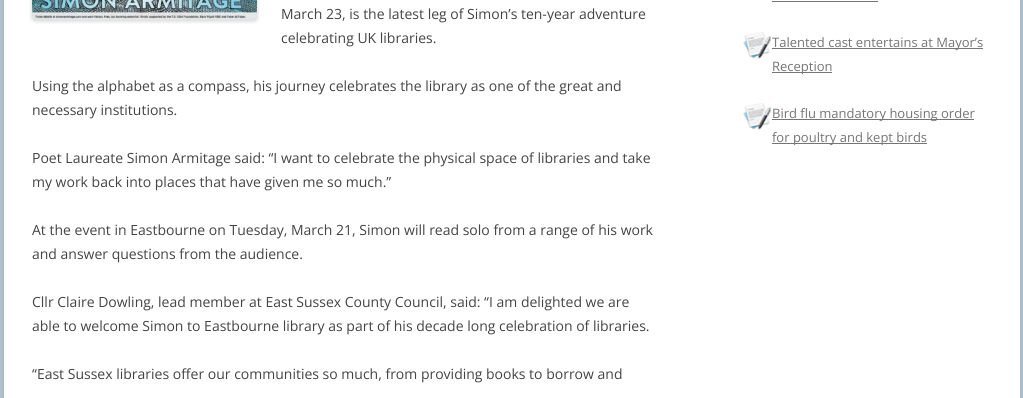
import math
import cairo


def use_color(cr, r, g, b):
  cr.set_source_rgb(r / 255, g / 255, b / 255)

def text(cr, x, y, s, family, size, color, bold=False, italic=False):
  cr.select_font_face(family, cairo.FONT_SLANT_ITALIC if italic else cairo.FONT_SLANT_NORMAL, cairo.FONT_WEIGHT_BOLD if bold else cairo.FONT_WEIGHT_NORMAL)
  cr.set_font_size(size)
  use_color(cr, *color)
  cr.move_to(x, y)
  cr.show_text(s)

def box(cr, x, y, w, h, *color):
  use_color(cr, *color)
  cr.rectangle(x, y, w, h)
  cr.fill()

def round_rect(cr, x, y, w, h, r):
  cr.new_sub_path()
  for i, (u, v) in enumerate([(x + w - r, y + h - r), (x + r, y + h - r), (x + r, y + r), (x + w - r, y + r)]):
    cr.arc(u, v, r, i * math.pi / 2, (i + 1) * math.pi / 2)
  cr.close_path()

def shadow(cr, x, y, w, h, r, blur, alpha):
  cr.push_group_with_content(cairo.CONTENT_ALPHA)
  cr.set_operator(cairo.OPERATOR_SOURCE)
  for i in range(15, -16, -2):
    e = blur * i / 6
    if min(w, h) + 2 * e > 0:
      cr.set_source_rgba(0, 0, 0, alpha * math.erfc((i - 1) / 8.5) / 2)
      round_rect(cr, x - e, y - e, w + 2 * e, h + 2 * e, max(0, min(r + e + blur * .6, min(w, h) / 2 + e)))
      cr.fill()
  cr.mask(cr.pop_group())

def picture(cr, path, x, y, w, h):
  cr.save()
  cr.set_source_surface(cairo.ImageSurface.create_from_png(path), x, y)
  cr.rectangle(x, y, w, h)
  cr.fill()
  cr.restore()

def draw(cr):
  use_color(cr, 179, 197, 211)
  cr.paint()
  use_color(cr, 100, 100, 100)
  shadow(cr, 4, -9, 1016, 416, 0, 3, 0.3)
  box(cr, 4, 0, 1016, 398, 255, 255, 255)
  use_color(cr, 0, 0, 0)
  shadow(cr, 32, -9, 225, 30, 3, 2, 0.2)
  picture(cr, "img_01.png", 32, 0, 225, 20)
  box(cr, 772, 1, 106, 1, 117, 117, 117)
  picture(cr, "img_02.png", 743, 32, 28, 27)
  box(cr, 772, 48, 211, 1, 117, 117, 117)
  box(cr, 772, 72, 60, 1, 117, 117, 117)
  picture(cr, "img_02.png", 743, 103, 28, 27)
  box(cr, 772, 119, 202, 1, 117, 117, 117)
  box(cr, 772, 143, 155, 1, 117, 117, 117)
  text(cr, 281, 19, "March 23, is the latest leg of Simon’s ten-year adventure", "Open Sans", 14, (68, 68, 68))
  text(cr, 281, 43, "celebrating UK libraries.", "Open Sans", 14, (68, 68, 68))
  text(cr, 32, 91, "Using the alphabet as a compass, his journey celebrates the library as one of the great and", "Open Sans", 14, (68, 68, 68))
  text(cr, 32, 115, "necessary institutions.", "Open Sans", 14, (68, 68, 68))
  text(cr, 32, 163, "Poet Laureate Simon Armitage said: “I want to celebrate the physical space of libraries and take", "Open Sans", 14, (68, 68, 68))
  text(cr, 32, 187, "my work back into places that have given me so much.”", "Open Sans", 14, (68, 68, 68))
  text(cr, 32, 235, "At the event in Eastbourne on Tuesday, March 21, Simon will read solo from a range of his work", "Open Sans", 14, (68, 68, 68))
  text(cr, 32, 259, "and answer questions from the audience.", "Open Sans", 14, (68, 68, 68))
  text(cr, 32, 307, "Cllr Claire Dowling, lead member at East Sussex County Council, said: “I am delighted we are", "Open Sans", 14, (68, 68, 68))
  text(cr, 32, 331, "able to welcome Simon to Eastbourne library as part of his decade long celebration of libraries.", "Open Sans", 14, (68, 68, 68))
  text(cr, 32, 379, "“East Sussex libraries offer our communities so much, from providing books to borrow and", "Open Sans", 14, (68, 68, 68))
  text(cr, 772, 47, "Talented cast entertains at Mayor’s", "Open Sans", 13, (117, 117, 117))
  text(cr, 772, 71, "Reception", "Open Sans", 13, (117, 117, 117))
  text(cr, 772, 118, "Bird flu mandatory housing order", "Open Sans", 13, (117, 117, 117))
  text(cr, 772, 142, "for poultry and kept birds", "Open Sans", 13, (117, 117, 117))


surface = cairo.ImageSurface(cairo.FORMAT_RGB24, 1023, 398)
cr = cairo.Context(surface)
options = cairo.FontOptions()
options.set_hint_metrics(cairo.HINT_METRICS_OFF)
options.set_hint_style(cairo.HINT_STYLE_NONE)
cr.set_font_options(options)
cr.set_miter_limit(4)
draw(cr)
surface.write_to_png("out.png")
